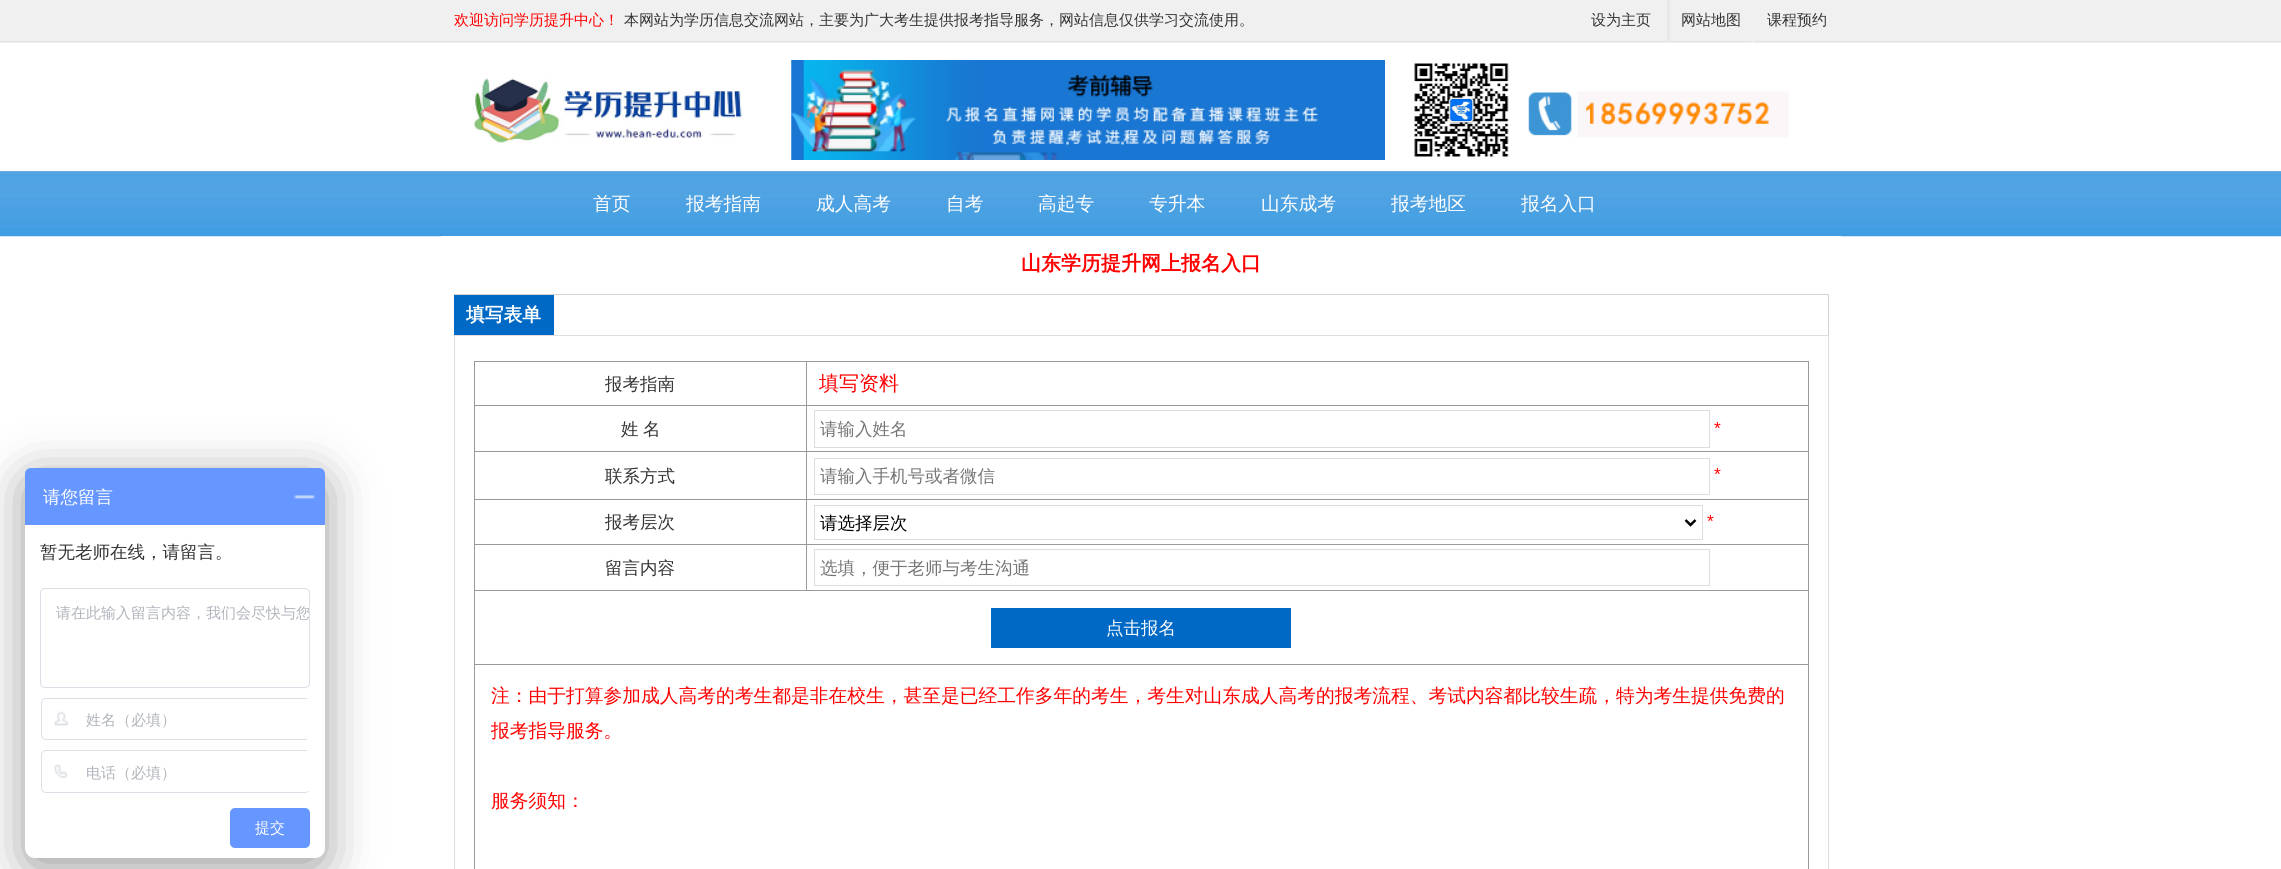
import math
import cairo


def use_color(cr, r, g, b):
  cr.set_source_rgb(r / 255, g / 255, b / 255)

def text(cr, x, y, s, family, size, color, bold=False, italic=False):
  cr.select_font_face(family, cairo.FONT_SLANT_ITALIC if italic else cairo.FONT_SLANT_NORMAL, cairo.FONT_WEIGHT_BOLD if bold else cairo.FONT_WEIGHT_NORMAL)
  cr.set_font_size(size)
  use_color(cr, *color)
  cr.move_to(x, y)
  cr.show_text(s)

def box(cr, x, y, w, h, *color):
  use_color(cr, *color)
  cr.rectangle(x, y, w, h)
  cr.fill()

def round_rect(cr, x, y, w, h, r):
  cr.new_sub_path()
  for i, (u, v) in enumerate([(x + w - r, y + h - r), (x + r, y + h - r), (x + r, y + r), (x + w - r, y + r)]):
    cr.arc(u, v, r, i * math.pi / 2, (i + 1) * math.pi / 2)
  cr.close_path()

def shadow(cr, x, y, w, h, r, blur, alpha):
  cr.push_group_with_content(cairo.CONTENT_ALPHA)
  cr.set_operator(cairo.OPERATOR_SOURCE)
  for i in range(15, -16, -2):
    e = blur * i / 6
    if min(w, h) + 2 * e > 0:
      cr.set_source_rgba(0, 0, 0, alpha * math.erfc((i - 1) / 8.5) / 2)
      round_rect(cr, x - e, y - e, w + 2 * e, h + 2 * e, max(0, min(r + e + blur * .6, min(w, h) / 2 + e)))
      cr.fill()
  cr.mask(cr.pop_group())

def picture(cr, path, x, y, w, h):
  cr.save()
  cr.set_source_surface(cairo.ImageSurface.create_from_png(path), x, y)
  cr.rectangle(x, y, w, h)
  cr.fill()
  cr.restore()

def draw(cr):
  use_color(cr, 255, 255, 255)
  cr.paint()
  box(cr, 0, 0, 2281, 43, 240, 240, 240)
  box(cr, 0, 41, 2281, 1, 226, 226, 226)
  box(cr, 1667, 0, 3, 42, 232, 232, 232)
  box(cr, 1751, 41, 3, 1, 240, 240, 240)
  picture(cr, "img_01.png", 471, 78, 271, 65)
  picture(cr, "img_02.png", 791, 60, 594, 100)
  picture(cr, "img_03.png", 1414, 63, 95, 94)
  picture(cr, "img_04.png", 1528, 91, 261, 47)
  picture(cr, "img_05.png", 0, 171, 2281, 66)
  use_color(cr, 0, 0, 0)
  shadow(cr, 25, 478, 300, 390, 10, 25, 0.4)
  use_color(cr, 255, 255, 255)
  round_rect(cr, 25, 468, 300, 390, 10)
  cr.fill()
  use_color(cr, 102, 150, 255)
  cr.new_path()
  cr.move_to(31, 468)
  cr.line_to(319, 468)
  cr.curve_to(322.5, 468, 325, 470.5, 325, 474)
  cr.line_to(325, 525)
  cr.line_to(25, 525)
  cr.line_to(25, 474)
  cr.curve_to(25, 470.5, 27.5, 468, 31, 468)
  cr.close_path()
  cr.fill()
  picture(cr, "img_06.png", 293, 495, 23, 5)
  round_rect(cr, 40.5, 588.5, 269, 99, 4.5)
  use_color(cr, 220, 223, 230)
  cr.set_line_width(1)
  cr.stroke()
  round_rect(cr, 41.5, 698.5, 268, 41, 4.5)
  cr.stroke()
  picture(cr, "img_07.png", 54, 711, 15, 15)
  box(cr, 306, 699, 4, 40, 255, 255, 255)
  round_rect(cr, 41.5, 750.5, 268, 42, 4.5)
  use_color(cr, 220, 223, 230)
  cr.stroke()
  picture(cr, "img_08.png", 54, 764, 14, 15)
  box(cr, 306, 751, 4, 40, 255, 255, 255)
  use_color(cr, 102, 150, 255)
  round_rect(cr, 230, 808, 80, 40, 5)
  cr.fill()
  box(cr, 441, 236, 1400, 1, 255, 255, 255)
  box(cr, 454, 294, 1375, 1, 211, 211, 211)
  box(cr, 1828, 294, 1, 41, 211, 211, 211)
  box(cr, 454, 295, 100, 40, 0, 105, 197)
  cr.rectangle(454.5, 335.5, 1374, 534)
  use_color(cr, 222, 222, 222)
  cr.stroke()
  box(cr, 474, 361, 1, 508, 153, 153, 153)
  box(cr, 474, 361, 1335, 1, 153, 153, 153)
  box(cr, 474, 405, 1335, 1, 153, 153, 153)
  box(cr, 474, 451, 1335, 1, 153, 153, 153)
  box(cr, 474, 499, 1335, 1, 153, 153, 153)
  box(cr, 474, 544, 1335, 1, 153, 153, 153)
  box(cr, 474, 590, 1335, 1, 153, 153, 153)
  box(cr, 806, 544, 1, 47, 153, 153, 153)
  box(cr, 806, 499, 1, 46, 153, 153, 153)
  box(cr, 806, 451, 1, 49, 153, 153, 153)
  box(cr, 806, 405, 1, 48, 153, 153, 153)
  box(cr, 806, 361, 1, 45, 153, 153, 153)
  box(cr, 474, 664, 1335, 1, 153, 153, 153)
  box(cr, 1808, 664, 1, 205, 153, 153, 153)
  box(cr, 1808, 590, 1, 75, 153, 153, 153)
  box(cr, 1808, 544, 1, 47, 153, 153, 153)
  box(cr, 1808, 499, 1, 46, 153, 153, 153)
  box(cr, 1808, 451, 1, 49, 153, 153, 153)
  box(cr, 1808, 405, 1, 48, 153, 153, 153)
  box(cr, 1808, 361, 1, 45, 153, 153, 153)
  cr.rectangle(814.5, 410.5, 895, 37)
  use_color(cr, 221, 221, 221)
  cr.stroke()
  cr.rectangle(814.5, 458.5, 895, 36)
  cr.stroke()
  cr.rectangle(814.5, 505.5, 888, 34)
  cr.stroke()
  cr.new_path()
  cr.move_to(1685.5, 520)
  cr.line_to(1690.5, 525)
  cr.line_to(1695.5, 520)
  use_color(cr, 0, 0, 0)
  cr.set_line_width(2.5)
  cr.stroke()
  cr.rectangle(814.5, 549.5, 895, 36)
  use_color(cr, 221, 221, 221)
  cr.set_line_width(1)
  cr.stroke()
  box(cr, 991, 608, 300, 40, 0, 105, 197)
  text(cr, 454, 25, "欢迎访问学历提升中心！", "WenQuanYi Zen Hei Medium", 15, (255, 0, 0))
  text(cr, 624, 25, "本网站为学历信息交流网站，主要为广大考生提供报考指导服务，网站信息仅供学习交流使用。", "WenQuanYi Zen Hei Medium", 15, (51, 51, 51))
  text(cr, 1591, 25, "设为主页", "WenQuanYi Zen Hei Medium", 15, (51, 51, 51))
  text(cr, 1681, 25, "网站地图", "WenQuanYi Zen Hei Medium", 15, (51, 51, 51))
  text(cr, 1767, 25, "课程预约", "WenQuanYi Zen Hei Medium", 15, (51, 51, 51))
  text(cr, 593, 210, "首页", "WenQuanYi Zen Hei Medium", 18.75, (255, 255, 255))
  text(cr, 686, 210, "报考指南", "WenQuanYi Zen Hei Medium", 18.75, (255, 255, 255))
  text(cr, 816, 210, "成人高考", "WenQuanYi Zen Hei Medium", 18.75, (255, 255, 255))
  text(cr, 946, 210, "自考", "WenQuanYi Zen Hei Medium", 18.75, (255, 255, 255))
  text(cr, 1038, 210, "高起专", "WenQuanYi Zen Hei Medium", 18.75, (255, 255, 255))
  text(cr, 1149, 210, "专升本", "WenQuanYi Zen Hei Medium", 18.75, (255, 255, 255))
  text(cr, 1261, 210, "山东成考", "WenQuanYi Zen Hei Medium", 18.75, (255, 255, 255))
  text(cr, 1391, 210, "报考地区", "WenQuanYi Zen Hei Medium", 18.75, (255, 255, 255))
  text(cr, 1521, 210, "报名入口", "WenQuanYi Zen Hei Medium", 18.75, (255, 255, 255))
  text(cr, 43, 503, "请您留言", "WenQuanYi Zen Hei Medium", 17.5, (255, 255, 255))
  text(cr, 40, 558, "暂无老师在线，请留言。", "WenQuanYi Zen Hei Medium", 17.5, (51, 51, 51))
  cr.save()
  round_rect(cr, 41, 589, 268, 97, 4)
  cr.clip()
  text(cr, 56, 618, "请在此输入留言内容，我们会尽快与您", "WenQuanYi Zen Hei Medium", 15, (176, 180, 187))
  cr.restore()
  text(cr, 86, 725, "姓名（必填）", "WenQuanYi Zen Hei Medium", 15, (176, 180, 187))
  text(cr, 86, 778, "电话（必填）", "WenQuanYi Zen Hei Medium", 15, (176, 180, 187))
  text(cr, 255, 833, "提交", "WenQuanYi Zen Hei Medium", 15, (255, 255, 255))
  text(cr, 1021, 270, "山东学历提升网上报名入口", "WenQuanYi Zen Hei", 20, (255, 0, 0), bold=True)
  text(cr, 466, 321, "填写表单", "WenQuanYi Zen Hei", 18.75, (255, 255, 255), bold=True)
  text(cr, 605, 390, "报考指南", "WenQuanYi Zen Hei Medium", 17.5, (51, 51, 51))
  text(cr, 819, 390, "填写资料", "WenQuanYi Zen Hei Medium", 20, (255, 0, 0))
  text(cr, 621, 435, "姓", "WenQuanYi Zen Hei Medium", 17.5, (51, 51, 51))
  text(cr, 643, 435, "名", "WenQuanYi Zen Hei Medium", 17.5, (51, 51, 51))
  text(cr, 820, 435, "请输入姓名", "WenQuanYi Zen Hei Medium", 17.5, (117, 117, 117))
  text(cr, 1714, 434, "*", "Liberation Sans", 17.5, (255, 0, 0))
  text(cr, 605, 482, "联系方式", "WenQuanYi Zen Hei Medium", 17.5, (51, 51, 51))
  text(cr, 820, 482, "请输入手机号或者微信", "WenQuanYi Zen Hei Medium", 17.5, (117, 117, 117))
  text(cr, 1714, 480, "*", "Liberation Sans", 17.5, (255, 0, 0))
  text(cr, 605, 528, "报考层次", "WenQuanYi Zen Hei Medium", 17.5, (51, 51, 51))
  text(cr, 820, 529, "请选择层次", "WenQuanYi Zen Hei Medium", 17.5, (0, 0, 0))
  text(cr, 1707, 527, "*", "Liberation Sans", 17.5, (255, 0, 0))
  text(cr, 605, 574, "留言内容", "WenQuanYi Zen Hei Medium", 17.5, (51, 51, 51))
  text(cr, 820, 574, "选填，便于老师与考生沟通", "WenQuanYi Zen Hei Medium", 17.5, (117, 117, 117))
  text(cr, 1106, 634, "点击报名", "WenQuanYi Zen Hei Medium", 17.5, (255, 255, 255))
  text(cr, 491, 702, "注：由于打算参加成人高考的考生都是非在校生，甚至是已经工作多年的考生，考生对山东成人高考的报考流程、考试内容都比较生疏，特为考生提供免费的", "WenQuanYi Zen Hei Medium", 18.75, (255, 0, 0))
  text(cr, 491, 737, "报考指导服务。", "WenQuanYi Zen Hei Medium", 18.75, (255, 0, 0))
  text(cr, 491, 807, "服务须知：", "WenQuanYi Zen Hei Medium", 18.75, (255, 0, 0))


surface = cairo.ImageSurface(cairo.FORMAT_RGB24, 2281, 869)
cr = cairo.Context(surface)
options = cairo.FontOptions()
options.set_hint_metrics(cairo.HINT_METRICS_OFF)
options.set_hint_style(cairo.HINT_STYLE_NONE)
cr.set_font_options(options)
cr.set_miter_limit(4)
draw(cr)
surface.write_to_png("out.png")
